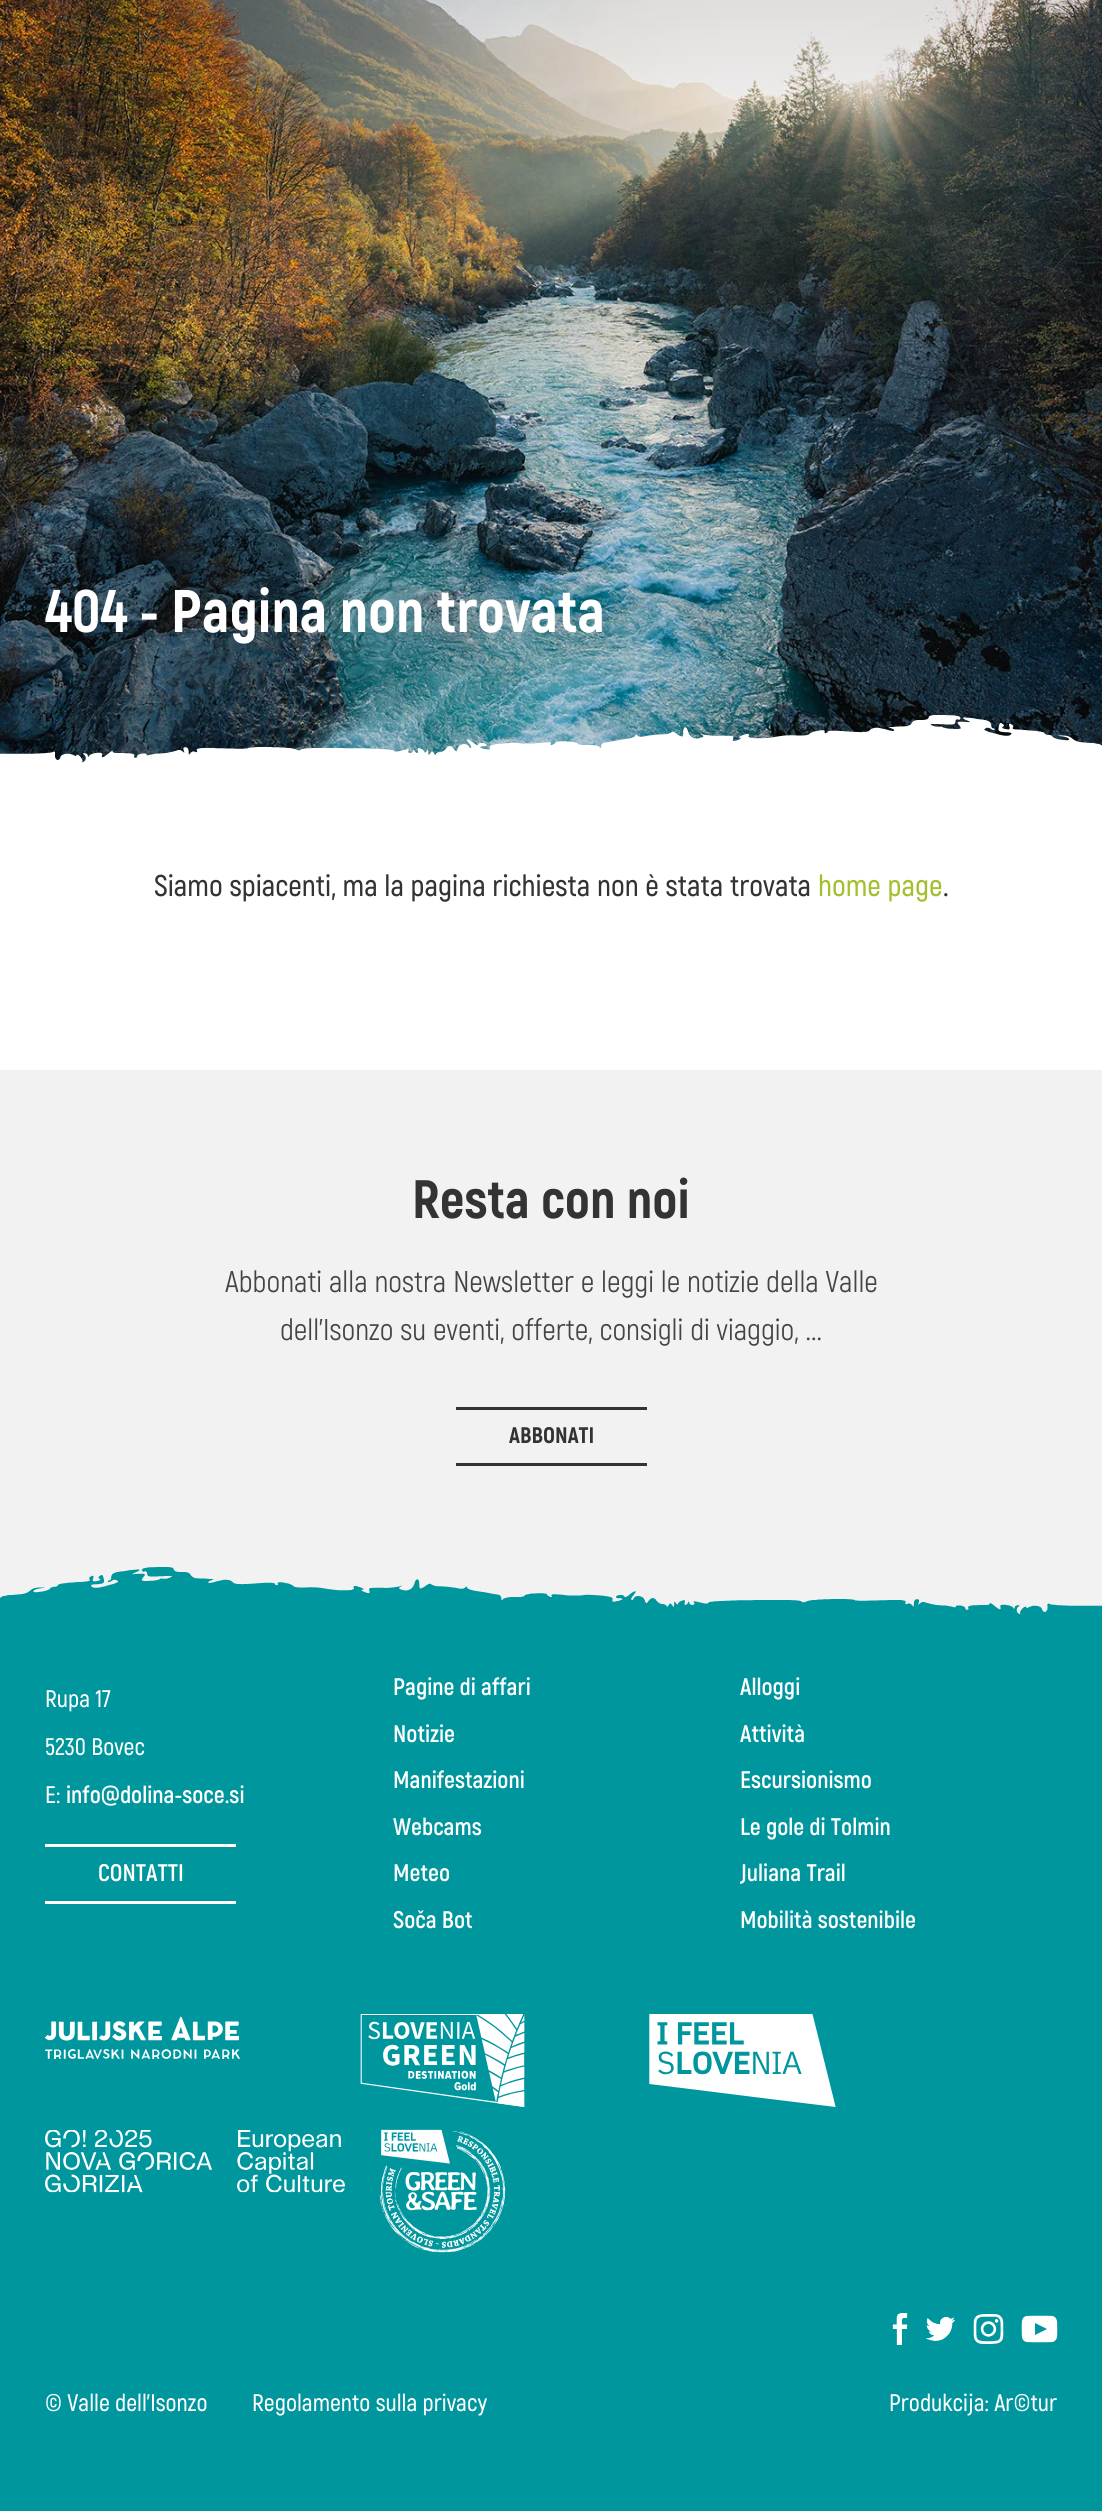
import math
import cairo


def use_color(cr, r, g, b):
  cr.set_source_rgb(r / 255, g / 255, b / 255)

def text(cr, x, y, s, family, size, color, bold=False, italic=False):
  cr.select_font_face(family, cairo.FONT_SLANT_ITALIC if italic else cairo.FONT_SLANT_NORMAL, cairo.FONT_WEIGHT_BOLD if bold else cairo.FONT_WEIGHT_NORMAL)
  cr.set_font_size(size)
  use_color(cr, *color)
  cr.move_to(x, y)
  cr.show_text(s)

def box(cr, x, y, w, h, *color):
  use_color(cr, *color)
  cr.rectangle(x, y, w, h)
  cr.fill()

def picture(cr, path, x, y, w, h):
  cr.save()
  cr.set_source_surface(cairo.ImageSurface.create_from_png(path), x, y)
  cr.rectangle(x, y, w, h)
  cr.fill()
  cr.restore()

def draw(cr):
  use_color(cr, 255, 255, 255)
  cr.paint()
  picture(cr, "img_01.png", 0, 0, 1102, 763)
  picture(cr, "img_02.png", 0, 715, 1102, 63)
  box(cr, 0, 1070, 1102, 545, 242, 242, 242)
  box(cr, 456, 1407, 191, 3, 51, 51, 51)
  box(cr, 456, 1463, 191, 3, 51, 51, 51)
  box(cr, 0, 1631, 1102, 880, 0, 150, 158)
  picture(cr, "img_03.png", 0, 1567, 1102, 64)
  box(cr, 45, 1844, 191, 3, 255, 255, 255)
  box(cr, 45, 1901, 191, 3, 255, 255, 255)
  picture(cr, "img_04.png", 45, 2016, 195, 44)
  picture(cr, "img_05.png", 360, 2014, 165, 93)
  picture(cr, "img_06.png", 649, 2014, 187, 93)
  picture(cr, "img_07.png", 45, 2130, 300, 63)
  picture(cr, "img_08.png", 379, 2129, 127, 124)
  picture(cr, "img_09.png", 892, 2313, 16, 32)
  picture(cr, "img_10.png", 926, 2317, 29, 24)
  picture(cr, "img_11.png", 973, 2314, 31, 30)
  picture(cr, "img_12.png", 1021, 2315, 37, 28)
  text(cr, 45, 632, "404 - Pagina non trovata", "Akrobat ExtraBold", 60, (255, 255, 255))
  text(cr, 154, 896, "Siamo spiacenti, ma la pagina richiesta non è stata trovata", "Akrobat SemiBold", 30, (51, 51, 51))
  text(cr, 818, 896, "home page", "Akrobat SemiBold", 30, (162, 192, 47))
  text(cr, 943, 896, ".", "Akrobat SemiBold", 30, (51, 51, 51))
  text(cr, 412, 1218, "Resta con noi", "Akrobat ExtraBold", 54, (51, 51, 51))
  text(cr, 225, 1292, "Abbonati alla nostra Newsletter e leggi le notizie della Valle", "Akrobat", 30, (68, 68, 68))
  text(cr, 280, 1340, "dell'Isonzo su eventi, offerte, consigli di viaggio, ...", "Akrobat", 30, (68, 68, 68))
  text(cr, 509, 1443, "ABBONATI", "Akrobat ExtraBold", 22.5, (51, 51, 51))
  text(cr, 45, 1707, "Rupa 17", "Akrobat SemiBold", 24, (255, 255, 255))
  text(cr, 45, 1755, "5230 Bovec", "Akrobat SemiBold", 24, (255, 255, 255))
  text(cr, 45, 1803, "E:", "Akrobat SemiBold", 24, (255, 255, 255))
  text(cr, 66, 1803, "info@dolina-soce.si", "Akrobat", 24, (255, 255, 255), bold=True)
  text(cr, 98, 1881, "CONTATTI", "Akrobat", 24, (255, 255, 255), bold=True)
  text(cr, 393, 1695, "Pagine di affari", "Akrobat", 24, (255, 255, 255), bold=True)
  text(cr, 393, 1742, "Notizie", "Akrobat", 24, (255, 255, 255), bold=True)
  text(cr, 393, 1788, "Manifestazioni", "Akrobat", 24, (255, 255, 255), bold=True)
  text(cr, 393, 1835, "Webcams", "Akrobat", 24, (255, 255, 255), bold=True)
  text(cr, 393, 1881, "Meteo", "Akrobat", 24, (255, 255, 255), bold=True)
  text(cr, 393, 1928, "Soča Bot", "Akrobat", 24, (255, 255, 255), bold=True)
  text(cr, 740, 1695, "Alloggi", "Akrobat", 24, (255, 255, 255), bold=True)
  text(cr, 740, 1742, "Attività", "Akrobat", 24, (255, 255, 255), bold=True)
  text(cr, 740, 1788, "Escursionismo", "Akrobat", 24, (255, 255, 255), bold=True)
  text(cr, 740, 1835, "Le gole di Tolmin", "Akrobat", 24, (255, 255, 255), bold=True)
  text(cr, 740, 1881, "Juliana Trail", "Akrobat", 24, (255, 255, 255), bold=True)
  text(cr, 740, 1928, "Mobilità sostenibile", "Akrobat", 24, (255, 255, 255), bold=True)
  text(cr, 45, 2411, "© Valle dell'Isonzo", "Akrobat SemiBold", 24, (255, 255, 255))
  text(cr, 252, 2411, "Regolamento sulla privacy", "Akrobat SemiBold", 24, (255, 255, 255))
  text(cr, 889, 2411, "Produkcija: Ar©tur", "Akrobat SemiBold", 24, (255, 255, 255))


surface = cairo.ImageSurface(cairo.FORMAT_RGB24, 1102, 2511)
cr = cairo.Context(surface)
options = cairo.FontOptions()
options.set_hint_metrics(cairo.HINT_METRICS_OFF)
options.set_hint_style(cairo.HINT_STYLE_NONE)
cr.set_font_options(options)
cr.set_miter_limit(4)
draw(cr)
surface.write_to_png("out.png")
